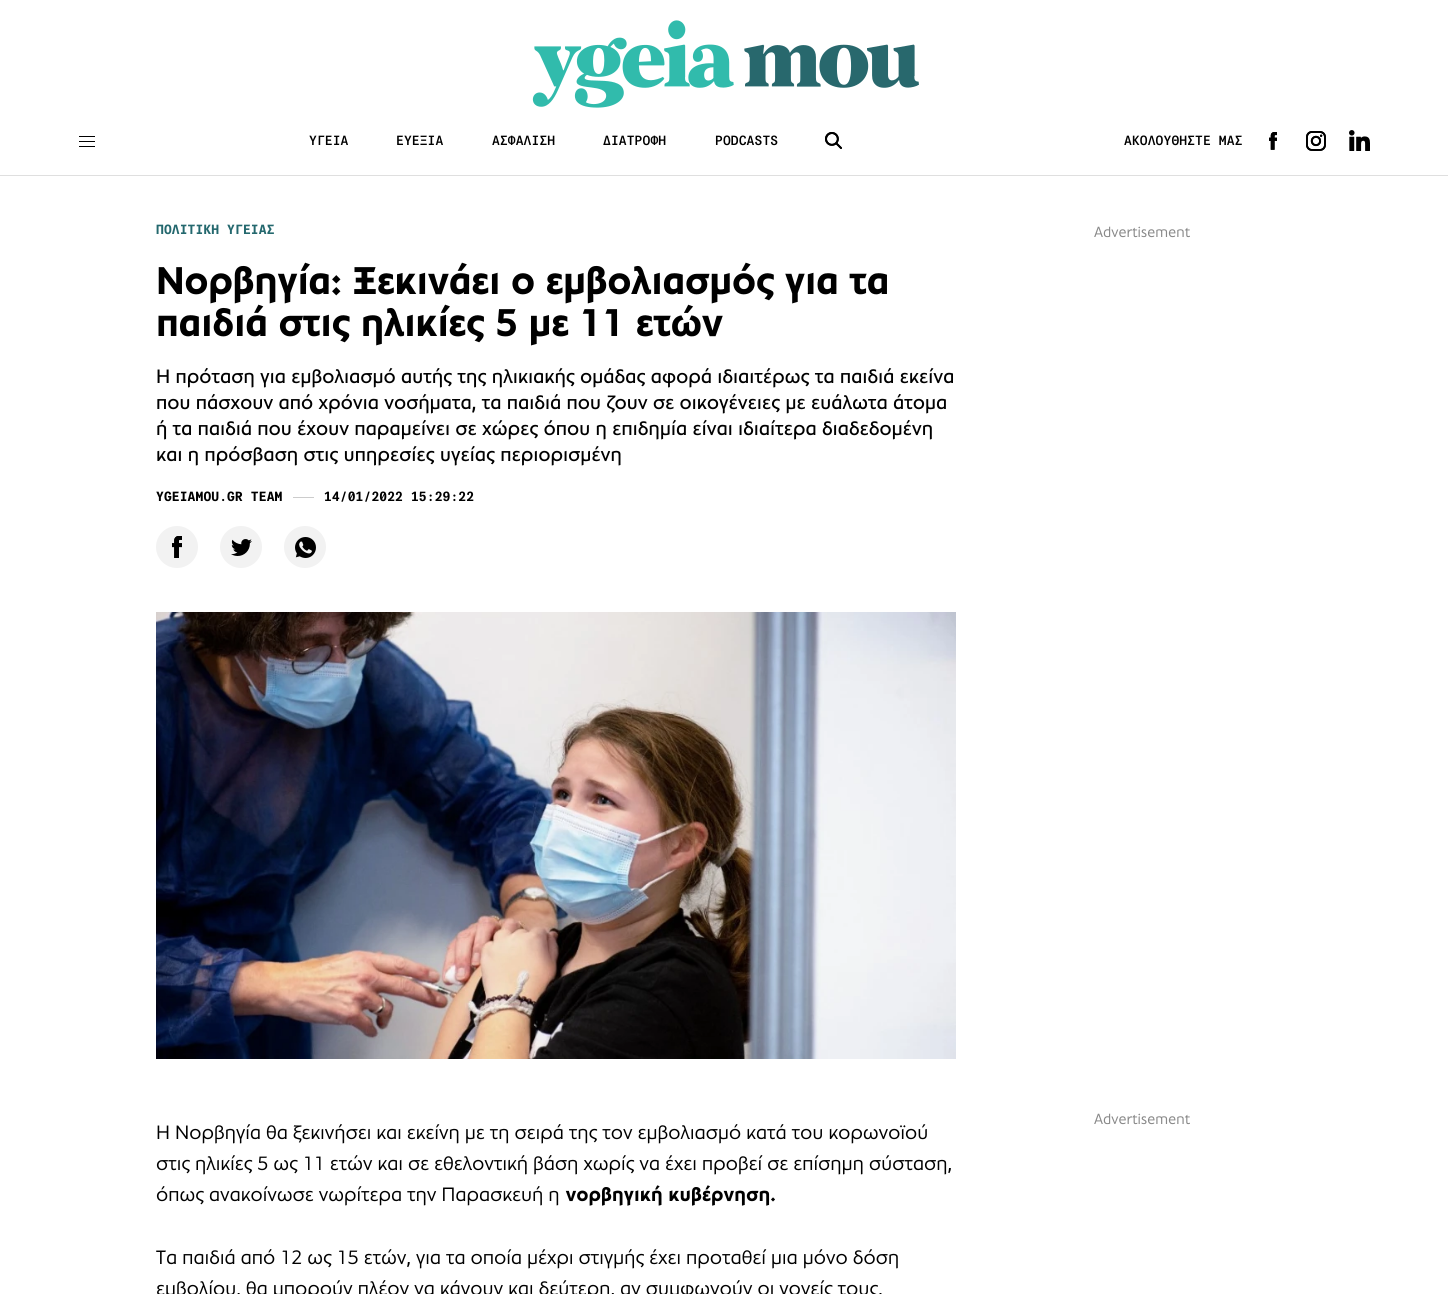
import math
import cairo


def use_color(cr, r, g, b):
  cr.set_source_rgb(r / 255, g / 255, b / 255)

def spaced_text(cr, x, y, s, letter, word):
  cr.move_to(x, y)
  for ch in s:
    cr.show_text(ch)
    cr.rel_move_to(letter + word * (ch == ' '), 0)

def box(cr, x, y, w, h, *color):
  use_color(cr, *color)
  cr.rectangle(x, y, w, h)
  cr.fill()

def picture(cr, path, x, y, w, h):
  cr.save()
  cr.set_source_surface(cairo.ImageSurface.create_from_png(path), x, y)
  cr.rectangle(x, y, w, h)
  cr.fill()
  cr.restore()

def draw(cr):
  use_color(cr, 255, 255, 255)
  cr.paint()
  box(cr, 0, 175, 1448, 1, 223, 223, 223)
  picture(cr, "img_01.png", 532, 20, 387, 88)
  box(cr, 79, 136, 16, 1, 0, 0, 0)
  box(cr, 79, 141, 16, 1, 0, 0, 0)
  box(cr, 79, 146, 16, 1, 0, 0, 0)
  picture(cr, "img_02.png", 825, 132, 17, 17)
  picture(cr, "img_03.png", 1269, 132, 8, 18)
  picture(cr, "img_04.png", 1306, 131, 20, 20)
  picture(cr, "img_05.png", 1349, 130, 21, 21)
  picture(cr, "img_06.png", 158, 262, 729, 42)
  picture(cr, "img_07.png", 158, 304, 565, 42)
  picture(cr, "img_08.png", 157, 367, 796, 21)
  picture(cr, "img_09.png", 157, 393, 789, 21)
  picture(cr, "img_10.png", 157, 419, 775, 21)
  picture(cr, "img_11.png", 157, 445, 464, 21)
  box(cr, 293, 497, 21, 1, 204, 204, 204)
  use_color(cr, 242, 242, 242)
  cr.arc(177, 547, 21, 0, 2 * math.pi)
  cr.fill()
  picture(cr, "img_12.png", 172, 536, 10, 22)
  cr.arc(241, 547, 21, 0, 2 * math.pi)
  cr.fill()
  picture(cr, "img_13.png", 231, 539, 21, 17)
  cr.arc(305, 547, 21, 0, 2 * math.pi)
  cr.fill()
  picture(cr, "img_14.png", 295, 537, 21, 21)
  picture(cr, "img_15.png", 156, 612, 800, 447)
  picture(cr, "img_16.png", 157, 1124, 770, 20)
  picture(cr, "img_17.png", 156, 1155, 795, 20)
  picture(cr, "img_18.png", 156, 1186, 403, 20)
  picture(cr, "img_19.png", 565, 1185, 210, 21)
  picture(cr, "img_20.png", 156, 1249, 742, 20)
  picture(cr, "img_21.png", 157, 1280, 725, 14)
  picture(cr, "img_22.png", 1094, 226, 96, 12)
  picture(cr, "img_22.png", 1094, 1113, 96, 12)
  cr.select_font_face("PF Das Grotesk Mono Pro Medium")
  cr.set_font_size(13)
  use_color(cr, 0, 0, 0)
  spaced_text(cr, 309, 145, "ΥΓΕΙΑ", 0.1, 0)
  spaced_text(cr, 396, 145, "ΕΥΕΞΙΑ", 0.1, 0)
  spaced_text(cr, 492, 145, "ΑΣΦΑΛΙΣΗ", 0.1, 0)
  spaced_text(cr, 603, 145, "ΔΙΑΤΡΟΦΗ", 0.1, 0)
  spaced_text(cr, 715, 145, "PODCASTS", 0.1, 0)
  spaced_text(cr, 1124, 145, "ΑΚΟΛΟΥΘΗΣΤΕ ΜΑΣ", 0.1, 0)
  cr.select_font_face("PF Das Grotesk Mono Pro", cairo.FONT_SLANT_NORMAL, cairo.FONT_WEIGHT_BOLD)
  use_color(cr, 36, 104, 110)
  spaced_text(cr, 156, 234, "ΠΟΛΙΤΙΚΗ ΥΓΕΙΑΣ", 0.1, 0)
  use_color(cr, 0, 0, 0)
  spaced_text(cr, 156, 501, "YGEIAMOU.GR TEAM", 0.1, 0)
  spaced_text(cr, 324, 501, "14/01/2022 15:29:22", 0.1, 0)


surface = cairo.ImageSurface(cairo.FORMAT_RGB24, 1448, 1294)
cr = cairo.Context(surface)
options = cairo.FontOptions()
options.set_hint_metrics(cairo.HINT_METRICS_OFF)
options.set_hint_style(cairo.HINT_STYLE_NONE)
cr.set_font_options(options)
cr.set_miter_limit(4)
draw(cr)
surface.write_to_png("out.png")
